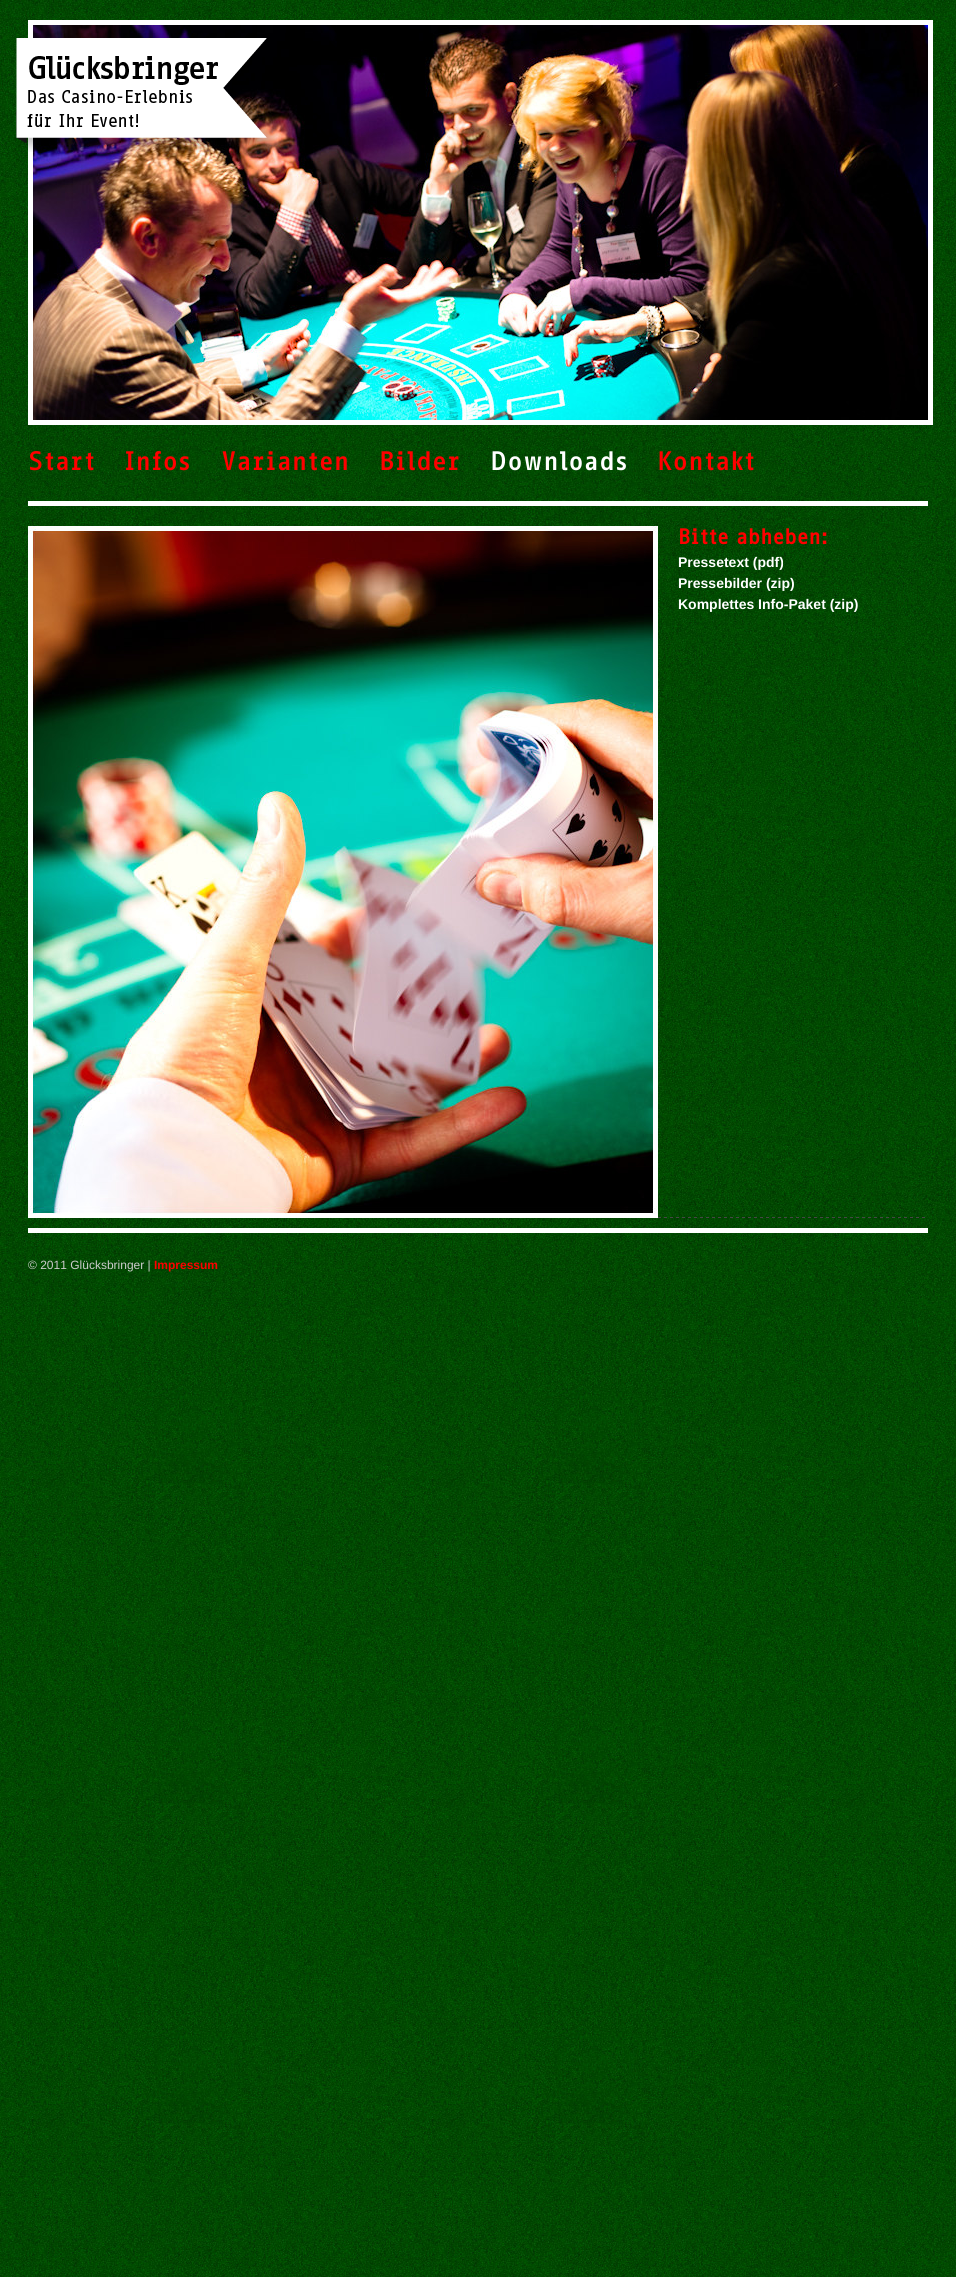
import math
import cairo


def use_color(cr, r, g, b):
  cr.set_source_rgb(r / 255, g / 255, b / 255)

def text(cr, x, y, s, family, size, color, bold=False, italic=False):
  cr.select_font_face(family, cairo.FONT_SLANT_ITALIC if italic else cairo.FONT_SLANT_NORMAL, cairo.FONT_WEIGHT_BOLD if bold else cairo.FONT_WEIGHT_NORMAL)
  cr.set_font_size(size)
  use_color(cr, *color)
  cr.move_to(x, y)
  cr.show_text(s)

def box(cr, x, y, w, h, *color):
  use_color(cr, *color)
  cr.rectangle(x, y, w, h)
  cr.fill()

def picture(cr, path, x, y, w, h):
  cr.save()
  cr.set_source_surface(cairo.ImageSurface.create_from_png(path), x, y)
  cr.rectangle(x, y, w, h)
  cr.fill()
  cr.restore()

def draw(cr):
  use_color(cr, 255, 255, 255)
  cr.paint()
  picture(cr, "img_01.png", 0, 0, 956, 2277)
  cr.rectangle(30.5, 22.5, 900, 400)
  use_color(cr, 255, 255, 255)
  cr.set_line_width(5)
  cr.stroke()
  picture(cr, "img_02.png", 33, 25, 895, 395)
  picture(cr, "img_03.png", 16, 38, 261, 114)
  picture(cr, "img_04.png", 658, 1217, 267, 1)
  box(cr, 28, 501, 900, 5, 255, 255, 255)
  picture(cr, "img_05.png", 28, 526, 630, 692)
  box(cr, 28, 1228, 900, 5, 255, 255, 255)
  text(cr, 28, 470, "Start", "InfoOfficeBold", 26, (255, 0, 0), bold=True)
  text(cr, 124, 470, "Infos", "InfoOfficeBold", 26, (255, 0, 0), bold=True)
  text(cr, 221, 470, "Varianten", "InfoOfficeBold", 26, (255, 0, 0), bold=True)
  text(cr, 379, 470, "Bilder", "InfoOfficeBold", 26, (255, 0, 0), bold=True)
  text(cr, 490, 470, "Downloads", "InfoOfficeBold", 26, (255, 255, 255), bold=True)
  text(cr, 657, 470, "Kontakt", "InfoOfficeBold", 26, (255, 0, 0), bold=True)
  text(cr, 678, 544, "Bitte abheben:", "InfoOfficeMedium", 21, (255, 0, 0), bold=True)
  text(cr, 678, 567, "Pressetext (pdf)", "Liberation Sans", 14, (255, 255, 255), bold=True)
  text(cr, 678, 588, "Pressebilder (zip)", "Liberation Sans", 14, (255, 255, 255), bold=True)
  text(cr, 678, 609, "Komplettes Info-Paket (zip)", "Liberation Sans", 14, (255, 255, 255), bold=True)
  text(cr, 28, 1269, "© 2011 Glücksbringer |", "Liberation Sans", 12, (204, 204, 204))
  text(cr, 154, 1269, "Impressum", "Liberation Sans", 12, (255, 0, 0), bold=True)


surface = cairo.ImageSurface(cairo.FORMAT_RGB24, 956, 2277)
cr = cairo.Context(surface)
options = cairo.FontOptions()
options.set_hint_metrics(cairo.HINT_METRICS_OFF)
options.set_hint_style(cairo.HINT_STYLE_NONE)
cr.set_font_options(options)
cr.set_miter_limit(4)
draw(cr)
surface.write_to_png("out.png")
